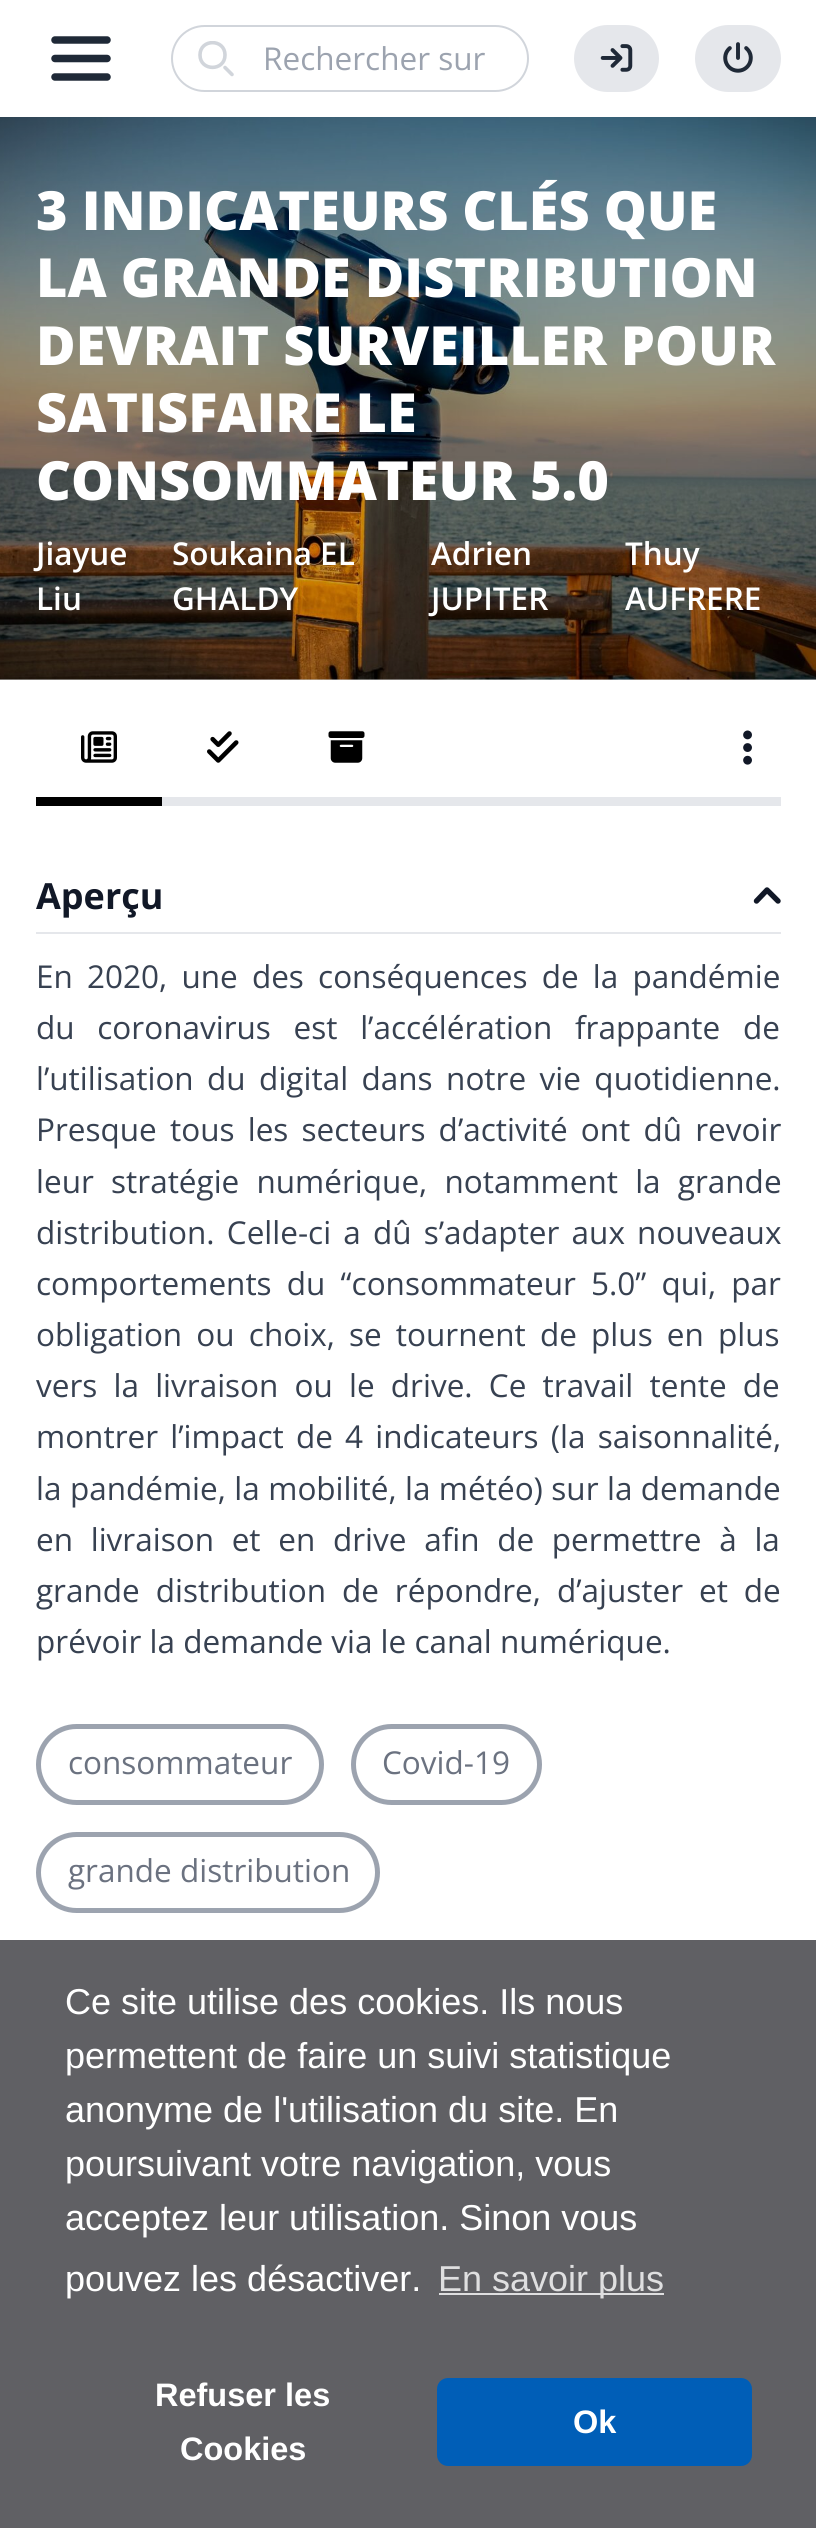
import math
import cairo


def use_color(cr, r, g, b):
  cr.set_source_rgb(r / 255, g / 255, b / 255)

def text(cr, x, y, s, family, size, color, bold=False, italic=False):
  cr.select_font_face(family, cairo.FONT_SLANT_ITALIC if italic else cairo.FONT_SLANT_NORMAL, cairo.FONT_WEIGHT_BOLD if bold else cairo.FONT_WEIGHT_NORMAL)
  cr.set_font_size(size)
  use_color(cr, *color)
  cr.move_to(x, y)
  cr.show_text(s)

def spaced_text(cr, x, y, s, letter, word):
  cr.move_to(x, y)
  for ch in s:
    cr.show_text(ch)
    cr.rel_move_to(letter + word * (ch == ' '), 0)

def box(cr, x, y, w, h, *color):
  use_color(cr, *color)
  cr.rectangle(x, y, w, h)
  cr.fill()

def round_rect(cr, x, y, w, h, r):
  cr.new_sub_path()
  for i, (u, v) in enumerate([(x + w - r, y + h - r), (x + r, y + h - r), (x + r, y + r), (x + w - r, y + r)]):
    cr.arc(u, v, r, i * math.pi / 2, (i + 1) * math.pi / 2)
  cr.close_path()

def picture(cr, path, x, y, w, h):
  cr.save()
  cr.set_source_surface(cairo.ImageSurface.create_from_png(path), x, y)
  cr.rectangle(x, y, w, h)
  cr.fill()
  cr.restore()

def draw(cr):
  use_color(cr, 255, 255, 255)
  cr.paint()
  box(cr, 0, 679, 816, 1, 204, 204, 204)
  cr.new_path()
  cr.move_to(55, 40)
  cr.line_to(107, 40)
  cr.move_to(55, 58.5)
  cr.line_to(107, 58.5)
  cr.move_to(55, 77)
  cr.line_to(107, 77)
  use_color(cr, 31, 41, 55)
  cr.set_line_width(7.5)
  cr.set_line_cap(cairo.LINE_CAP_ROUND)
  cr.stroke()
  round_rect(cr, 172, 26, 356, 65, 32.5)
  use_color(cr, 209, 213, 219)
  cr.set_line_width(2)
  cr.set_line_cap(cairo.LINE_CAP_BUTT)
  cr.stroke()
  cr.save()
  cr.rectangle(198, 41, 36, 36)
  cr.clip()
  cr.new_path()
  cr.move_to(232, 74.5)
  cr.line_to(225, 67.5)
  cr.move_to(225, 55)
  cr.curve_to(225, 71.5, 200, 71.5, 200, 55)
  cr.curve_to(200, 38.5, 225, 38.5, 225, 55)
  cr.close_path()
  cr.set_line_width(3.6)
  cr.set_line_cap(cairo.LINE_CAP_ROUND)
  cr.set_line_join(cairo.LINE_JOIN_ROUND)
  cr.stroke()
  cr.restore()
  use_color(cr, 229, 231, 235)
  round_rect(cr, 574, 25, 85, 67, 33.5)
  cr.fill()
  picture(cr, "img_01.png", 600, 44, 33, 28)
  round_rect(cr, 695, 25, 86, 67, 33.5)
  cr.fill()
  picture(cr, "img_02.png", 723, 42, 30, 31)
  picture(cr, "img_03.png", 0, 117, 816, 563)
  box(cr, 162, 797, 619, 9, 229, 231, 235)
  box(cr, 36, 797, 126, 9, 0, 0, 0)
  picture(cr, "img_04.png", 81, 731, 36, 32)
  picture(cr, "img_05.png", 207, 731, 32, 32)
  picture(cr, "img_06.png", 328, 731, 37, 32)
  picture(cr, "img_07.png", 743, 730, 9, 35)
  box(cr, 36, 932, 745, 2, 229, 231, 235)
  cr.new_path()
  cr.move_to(778, 901)
  cr.line_to(767, 890)
  cr.line_to(756.5, 901)
  use_color(cr, 17, 24, 39)
  cr.set_line_width(5.4)
  cr.set_line_cap(cairo.LINE_CAP_ROUND)
  cr.set_line_join(cairo.LINE_JOIN_ROUND)
  cr.stroke()
  round_rect(cr, 38.5, 1726.5, 283, 76, 38)
  use_color(cr, 156, 163, 175)
  cr.set_line_width(5)
  cr.set_line_cap(cairo.LINE_CAP_BUTT)
  cr.set_line_join(cairo.LINE_JOIN_MITER)
  cr.stroke()
  round_rect(cr, 353.5, 1726.5, 186, 76, 38)
  cr.stroke()
  round_rect(cr, 38.5, 1834.5, 339, 76, 38)
  cr.stroke()
  box(cr, 0, 1940, 816, 588, 96, 96, 100)
  box(cr, 439, 2293, 225, 2, 223, 223, 224)
  use_color(cr, 0, 94, 183)
  round_rect(cr, 437, 2378, 315, 88, 11)
  cr.fill()
  text(cr, 263, 70, "Rechercher sur", "Open Sans", 31.5, (156, 163, 175))
  text(cr, 36, 230, "3 INDICATEURS CLÉS QUE", "Open Sans ExtraBold", 54, (255, 255, 255))
  text(cr, 36, 297, "LA GRANDE DISTRIBUTION", "Open Sans ExtraBold", 54, (255, 255, 255))
  text(cr, 36, 365, "DEVRAIT SURVEILLER POUR", "Open Sans ExtraBold", 54, (255, 255, 255))
  text(cr, 36, 432, "SATISFAIRE LE", "Open Sans ExtraBold", 54, (255, 255, 255))
  text(cr, 36, 500, "CONSOMMATEUR 5.0", "Open Sans ExtraBold", 54, (255, 255, 255))
  text(cr, 36, 565, "Jiayue", "Open Sans SemiBold", 31.5, (255, 255, 255))
  text(cr, 36, 610, "Liu", "Open Sans SemiBold", 31.5, (255, 255, 255))
  text(cr, 172, 565, "Soukaina EL", "Open Sans SemiBold", 31.5, (255, 255, 255))
  text(cr, 172, 610, "GHALDY", "Open Sans SemiBold", 31.5, (255, 255, 255))
  text(cr, 431, 565, "Adrien", "Open Sans SemiBold", 31.5, (255, 255, 255))
  text(cr, 431, 610, "JUPITER", "Open Sans SemiBold", 31.5, (255, 255, 255))
  text(cr, 625, 565, "Thuy", "Open Sans SemiBold", 31.5, (255, 255, 255))
  text(cr, 625, 610, "AUFRERE", "Open Sans SemiBold", 31.5, (255, 255, 255))
  text(cr, 36, 909, "Aperçu", "Open Sans", 36, (17, 24, 39), bold=True)
  cr.select_font_face("Open Sans")
  cr.set_font_size(31.5)
  use_color(cr, 55, 65, 81)
  spaced_text(cr, 36, 988, "En 2020, une des conséquences de la pandémie", 0, 6)
  spaced_text(cr, 36, 1039, "du coronavirus est l’accélération frappante de", 0, 14.5)
  spaced_text(cr, 36, 1090, "l’utilisation du digital dans notre vie quotidienne.", 0, 5.25)
  spaced_text(cr, 36, 1141, "Presque tous les secteurs d’activité ont dû revoir", 0, 5)
  spaced_text(cr, 36, 1193, "leur stratégie numérique, notamment la grande", 0, 9)
  spaced_text(cr, 36, 1244, "distribution. Celle-ci a dû s’adapter aux nouveaux", 0, 4)
  spaced_text(cr, 36, 1295, "comportements du “consommateur 5.0” qui, par", 0, 7)
  spaced_text(cr, 36, 1346, "obligation ou choix, se tournent de plus en plus", 0, 6)
  spaced_text(cr, 36, 1397, "vers la livraison ou le drive. Ce travail tente de", 0, 8)
  spaced_text(cr, 36, 1448, "montrer l’impact de 4 indicateurs (la saisonnalité,", 0, 4)
  spaced_text(cr, 36, 1500, "la pandémie, la mobilité, la météo) sur la demande", 0, 0.25)
  spaced_text(cr, 36, 1551, "en livraison et en drive afin de permettre à la", 0, 9.5)
  spaced_text(cr, 36, 1602, "grande distribution de répondre, d’ajuster et de", 0, 7.75)
  text(cr, 36, 1653, "prévoir la demande via le canal numérique.", "Open Sans", 31.5, (55, 65, 81))
  text(cr, 68, 1774, "consommateur", "Open Sans", 31.5, (107, 114, 128))
  text(cr, 382, 1774, "Covid-19", "Open Sans", 31.5, (107, 114, 128))
  text(cr, 68, 1882, "grande distribution", "Open Sans", 31.5, (107, 114, 128))
  text(cr, 65, 2014, "Ce site utilise des cookies. Ils nous", "Liberation Sans", 36, (255, 255, 255))
  text(cr, 65, 2068, "permettent de faire un suivi statistique", "Liberation Sans", 36, (255, 255, 255))
  text(cr, 65, 2122, "anonyme de l'utilisation du site. En", "Liberation Sans", 36, (255, 255, 255))
  text(cr, 65, 2176, "poursuivant votre navigation, vous", "Liberation Sans", 36, (255, 255, 255))
  text(cr, 65, 2230, "acceptez leur utilisation. Sinon vous", "Liberation Sans", 36, (255, 255, 255))
  text(cr, 65, 2291, "pouvez les désactiver.", "Liberation Sans", 36, (255, 255, 255))
  text(cr, 438, 2291, "En savoir plus", "Liberation Sans", 36, (223, 223, 224))
  text(cr, 155, 2406, "Refuser les", "Liberation Sans", 32.5, (255, 255, 255), bold=True)
  text(cr, 180, 2460, "Cookies", "Liberation Sans", 32.5, (255, 255, 255), bold=True)
  text(cr, 573, 2433, "Ok", "Liberation Sans", 32.5, (255, 255, 255), bold=True)


surface = cairo.ImageSurface(cairo.FORMAT_RGB24, 816, 2528)
cr = cairo.Context(surface)
options = cairo.FontOptions()
options.set_hint_metrics(cairo.HINT_METRICS_OFF)
options.set_hint_style(cairo.HINT_STYLE_NONE)
cr.set_font_options(options)
cr.set_miter_limit(4)
draw(cr)
surface.write_to_png("out.png")
